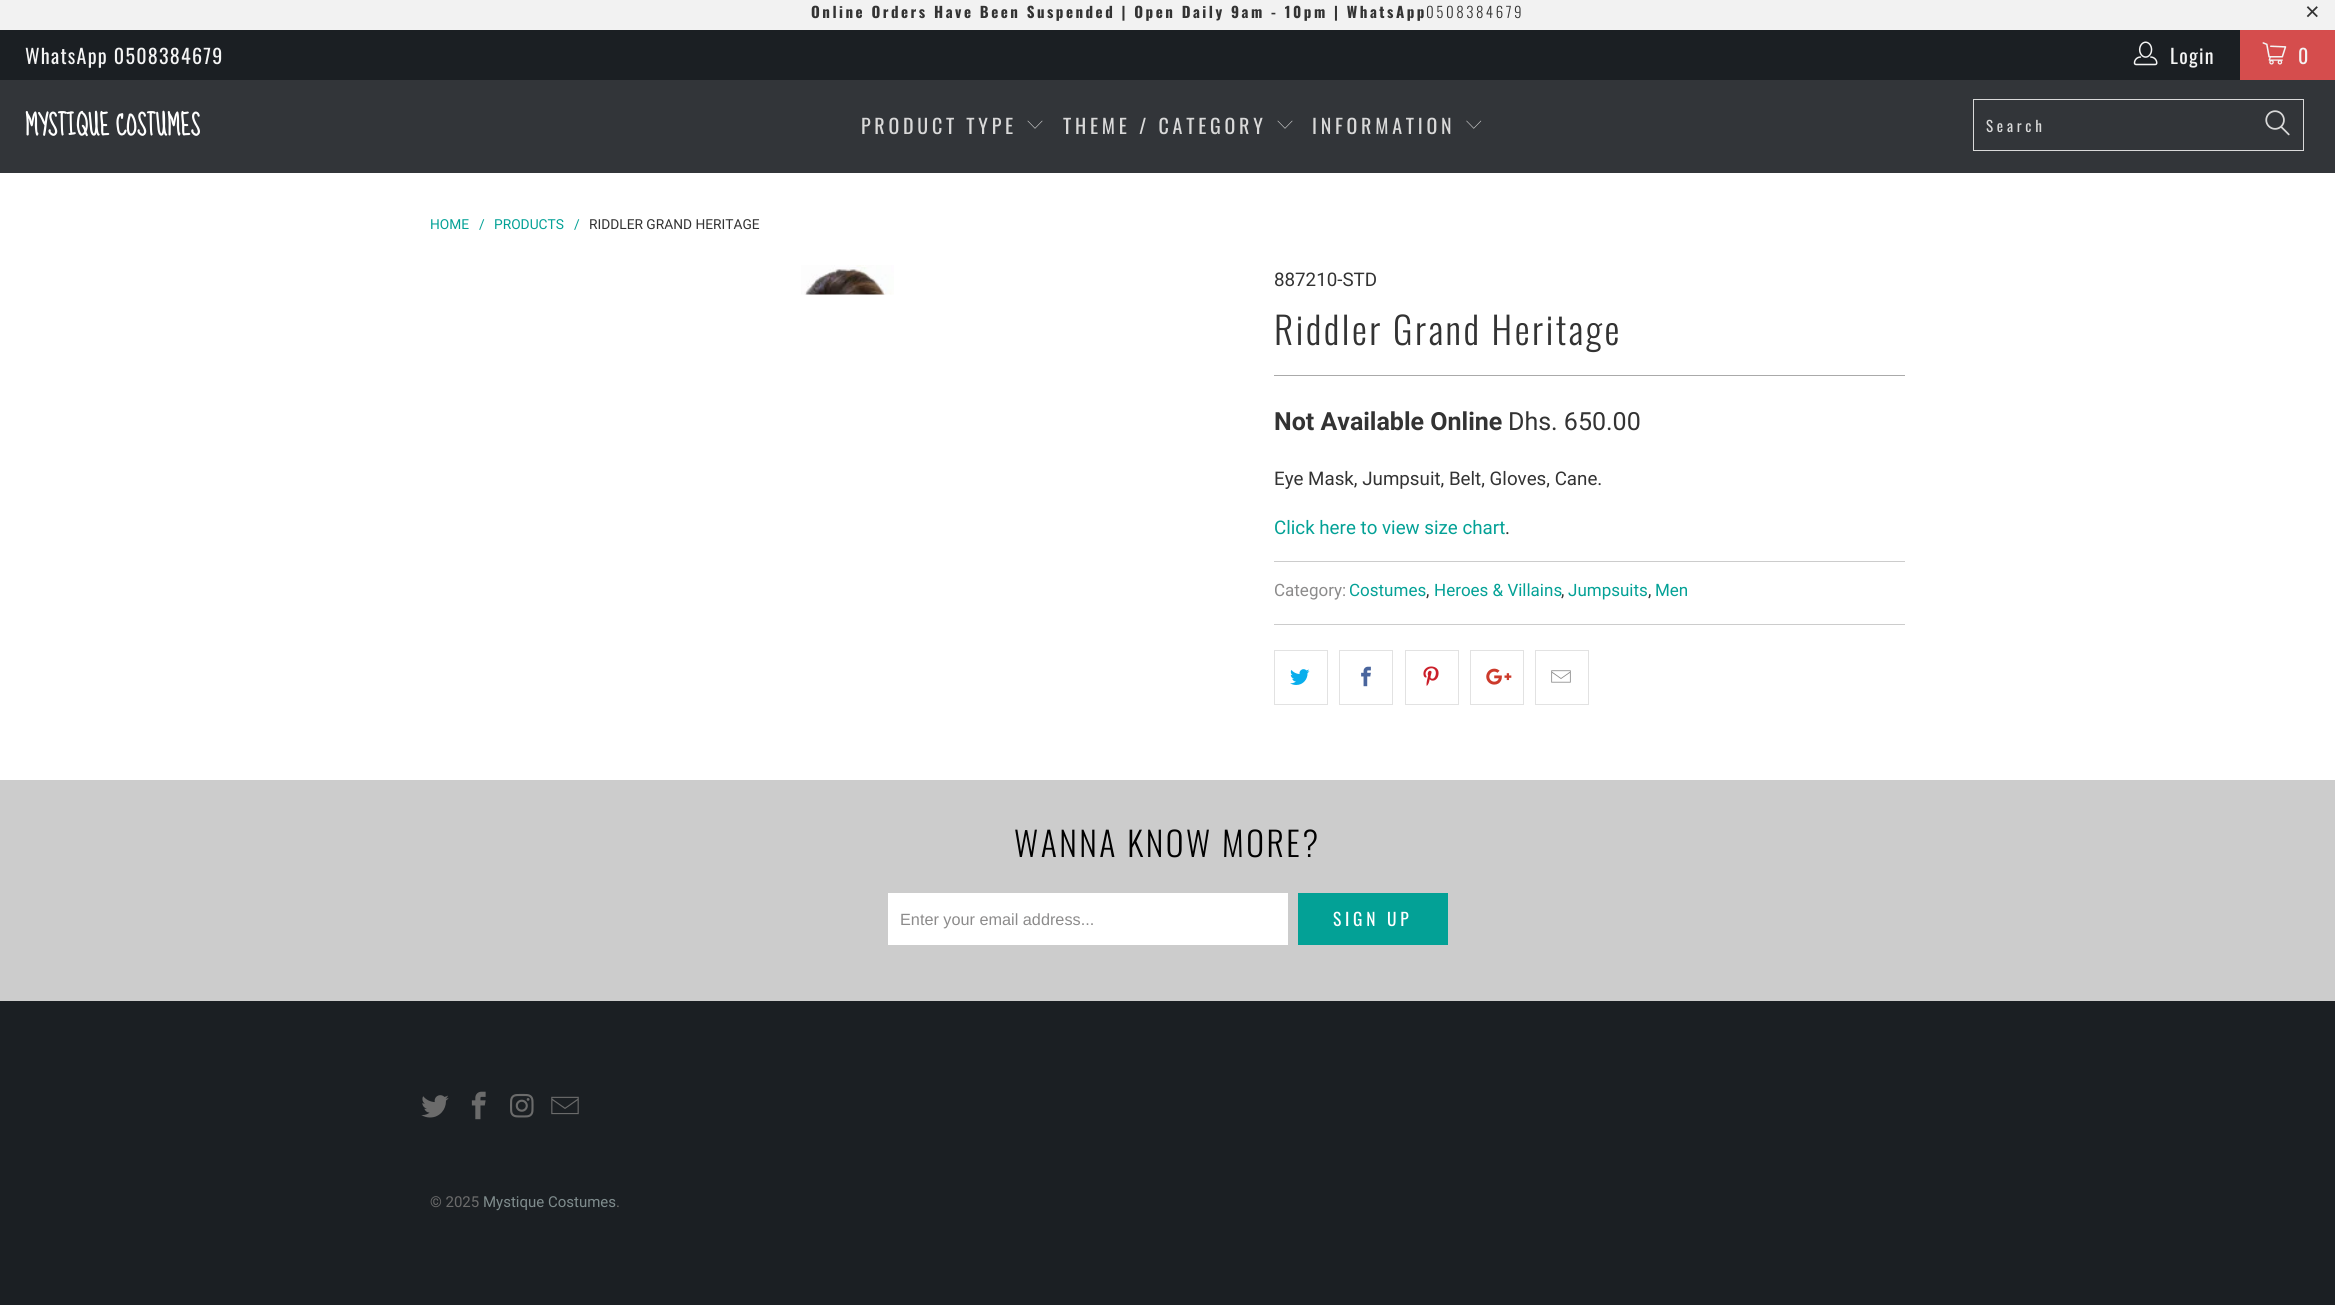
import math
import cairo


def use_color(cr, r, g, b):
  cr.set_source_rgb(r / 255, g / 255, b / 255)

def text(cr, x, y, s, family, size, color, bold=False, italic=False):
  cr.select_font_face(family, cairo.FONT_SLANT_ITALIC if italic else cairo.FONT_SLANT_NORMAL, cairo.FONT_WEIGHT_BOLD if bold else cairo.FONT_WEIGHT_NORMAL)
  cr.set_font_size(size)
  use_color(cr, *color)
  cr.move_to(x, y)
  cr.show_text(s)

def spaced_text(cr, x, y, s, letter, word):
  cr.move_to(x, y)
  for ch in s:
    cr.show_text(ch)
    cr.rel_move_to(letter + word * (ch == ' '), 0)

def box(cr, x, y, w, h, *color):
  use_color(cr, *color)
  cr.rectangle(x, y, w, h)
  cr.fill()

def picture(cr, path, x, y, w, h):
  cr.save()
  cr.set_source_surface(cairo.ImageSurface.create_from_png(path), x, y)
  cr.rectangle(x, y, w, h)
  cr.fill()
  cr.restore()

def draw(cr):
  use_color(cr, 255, 255, 255)
  cr.paint()
  box(cr, 0, 0, 2335, 30, 242, 242, 242)
  box(cr, 0, 30, 2240, 50, 27, 31, 35)
  picture(cr, "img_01.png", 2133, 41, 25, 25)
  box(cr, 2240, 30, 95, 50, 213, 77, 77)
  picture(cr, "img_02.png", 2262, 42, 25, 23)
  box(cr, 0, 80, 2335, 93, 50, 53, 57)
  picture(cr, "img_03.png", 1027, 120, 16, 9)
  picture(cr, "img_03.png", 1277, 120, 16, 9)
  picture(cr, "img_04.png", 1466, 120, 16, 9)
  cr.rectangle(1973.5, 99.5, 330, 51)
  use_color(cr, 217, 217, 217)
  cr.set_line_width(1)
  cr.stroke()
  picture(cr, "img_05.png", 2265, 110, 25, 26)
  picture(cr, "img_06.png", 801, 265, 93, 30)
  box(cr, 1274, 375, 631, 1, 170, 170, 170)
  box(cr, 1274, 561, 631, 1, 204, 204, 204)
  box(cr, 1274, 624, 631, 1, 204, 204, 204)
  cr.rectangle(1274.5, 650.5, 53, 54)
  use_color(cr, 226, 226, 226)
  cr.stroke()
  picture(cr, "img_07.png", 1290, 669, 20, 16)
  cr.rectangle(1339.5, 650.5, 53, 54)
  cr.stroke()
  picture(cr, "img_08.png", 1361, 666, 10, 21)
  cr.rectangle(1405.5, 650.5, 53, 54)
  cr.stroke()
  picture(cr, "img_09.png", 1423, 666, 16, 20)
  cr.rectangle(1470.5, 650.5, 53, 54)
  cr.stroke()
  picture(cr, "img_10.png", 1486, 668, 26, 17)
  cr.rectangle(1535.5, 650.5, 53, 54)
  cr.stroke()
  picture(cr, "img_11.png", 1551, 670, 20, 13)
  box(cr, 0, 780, 2335, 221, 204, 204, 204)
  box(cr, 888, 893, 400, 52, 255, 255, 255)
  box(cr, 1298, 893, 150, 52, 3, 161, 150)
  box(cr, 0, 1001, 2335, 304, 27, 31, 35)
  picture(cr, "img_12.png", 421, 1095, 28, 23)
  picture(cr, "img_13.png", 471, 1091, 15, 29)
  picture(cr, "img_14.png", 510, 1093, 24, 25)
  picture(cr, "img_15.png", 551, 1096, 28, 19)
  cr.select_font_face("Oswald", cairo.FONT_SLANT_NORMAL, cairo.FONT_WEIGHT_BOLD)
  cr.set_font_size(15)
  use_color(cr, 51, 51, 51)
  spaced_text(cr, 811, 18, "Online Orders Have Been Suspended | Open Daily 9am - 10pm | WhatsApp", 2.5, 0)
  cr.select_font_face("Oswald Light")
  spaced_text(cr, 1426, 18, "0508384679", 2.5, 0)
  cr.select_font_face("Liberation Sans")
  cr.set_font_size(25)
  spaced_text(cr, 2305, 20, "×", 2.5, 0)
  cr.select_font_face("Oswald")
  cr.set_font_size(20)
  use_color(cr, 244, 244, 244)
  spaced_text(cr, 25, 64, "WhatsApp 0508384679", 1.25, 0)
  spaced_text(cr, 2170, 64, "Login", 1.25, 0)
  spaced_text(cr, 2298, 64, "0", 1.25, 0)
  text(cr, 25, 135, "MYSTIQUE COSTUMES", "Sue Ellen Francisco", 25, (255, 255, 255), bold=True)
  cr.select_font_face("Oswald")
  cr.set_font_size(20)
  use_color(cr, 217, 217, 217)
  spaced_text(cr, 861, 134, "PRODUCT TYPE", 3.75, 0)
  spaced_text(cr, 1063, 134, "THEME / CATEGORY", 3.75, 0)
  spaced_text(cr, 1312, 134, "INFORMATION", 3.75, 0)
  cr.set_font_size(15)
  spaced_text(cr, 1986, 132, "Search", 3.75, 0)
  text(cr, 430, 229, "HOME", "Roboto", 13.75, (3, 161, 150))
  text(cr, 479, 229, "/", "Roboto", 13.75, (3, 161, 150))
  text(cr, 494, 229, "PRODUCTS", "Roboto", 13.75, (3, 161, 150))
  text(cr, 574, 229, "/", "Roboto", 13.75, (3, 161, 150))
  text(cr, 589, 229, "RIDDLER GRAND HERITAGE", "Roboto", 13.75, (51, 51, 51))
  text(cr, 1274, 286, "887210-STD", "Roboto", 18.75, (51, 51, 51))
  cr.select_font_face("Oswald Light")
  cr.set_font_size(37.5)
  spaced_text(cr, 1274, 345, "Riddler Grand Heritage", 2.5, 0)
  text(cr, 1274, 430, "Not Available Online", "Roboto", 25, (51, 51, 51), bold=True)
  text(cr, 1508, 430, "Dhs. 650.00", "Roboto", 25, (51, 51, 51))
  text(cr, 1274, 485, "Eye Mask, Jumpsuit, Belt, Gloves, Cane.", "Roboto", 18.75, (51, 51, 51))
  text(cr, 1274, 534, "Click here to view size chart", "Roboto", 18.75, (3, 161, 150))
  text(cr, 1505, 534, ".", "Roboto", 18.75, (51, 51, 51))
  text(cr, 1274, 596, "Category:", "Roboto", 17, (140, 139, 139))
  text(cr, 1349, 596, "Costumes", "Roboto", 17, (3, 161, 150))
  text(cr, 1426, 596, ",", "Roboto", 17, (51, 51, 51))
  text(cr, 1434, 596, "Heroes & Villains", "Roboto", 17, (3, 161, 150))
  text(cr, 1561, 596, ",", "Roboto", 17, (51, 51, 51))
  text(cr, 1568, 596, "Jumpsuits", "Roboto", 17, (3, 161, 150))
  text(cr, 1648, 596, ",", "Roboto", 17, (51, 51, 51))
  text(cr, 1655, 596, "Men", "Roboto", 17, (3, 161, 150))
  cr.select_font_face("Oswald Light")
  cr.set_font_size(33.75)
  use_color(cr, 0, 0, 0)
  spaced_text(cr, 1014, 857, "WANNA KNOW MORE?", 2.5, 0)
  text(cr, 900, 925, "Enter your email address...", "Liberation Sans", 16.25, (140, 139, 139))
  cr.select_font_face("Oswald")
  cr.set_font_size(17.5)
  use_color(cr, 255, 255, 255)
  spaced_text(cr, 1333, 926, "SIGN UP", 3.75, 0)
  text(cr, 430, 1207, "© 2025", "Roboto", 15, (107, 107, 107))
  text(cr, 483, 1207, "Mystique Costumes", "Roboto", 15, (127, 140, 141))
  text(cr, 616, 1207, ".", "Roboto", 15, (107, 107, 107))


surface = cairo.ImageSurface(cairo.FORMAT_RGB24, 2335, 1305)
cr = cairo.Context(surface)
options = cairo.FontOptions()
options.set_hint_metrics(cairo.HINT_METRICS_OFF)
options.set_hint_style(cairo.HINT_STYLE_NONE)
cr.set_font_options(options)
cr.set_miter_limit(4)
draw(cr)
surface.write_to_png("out.png")
